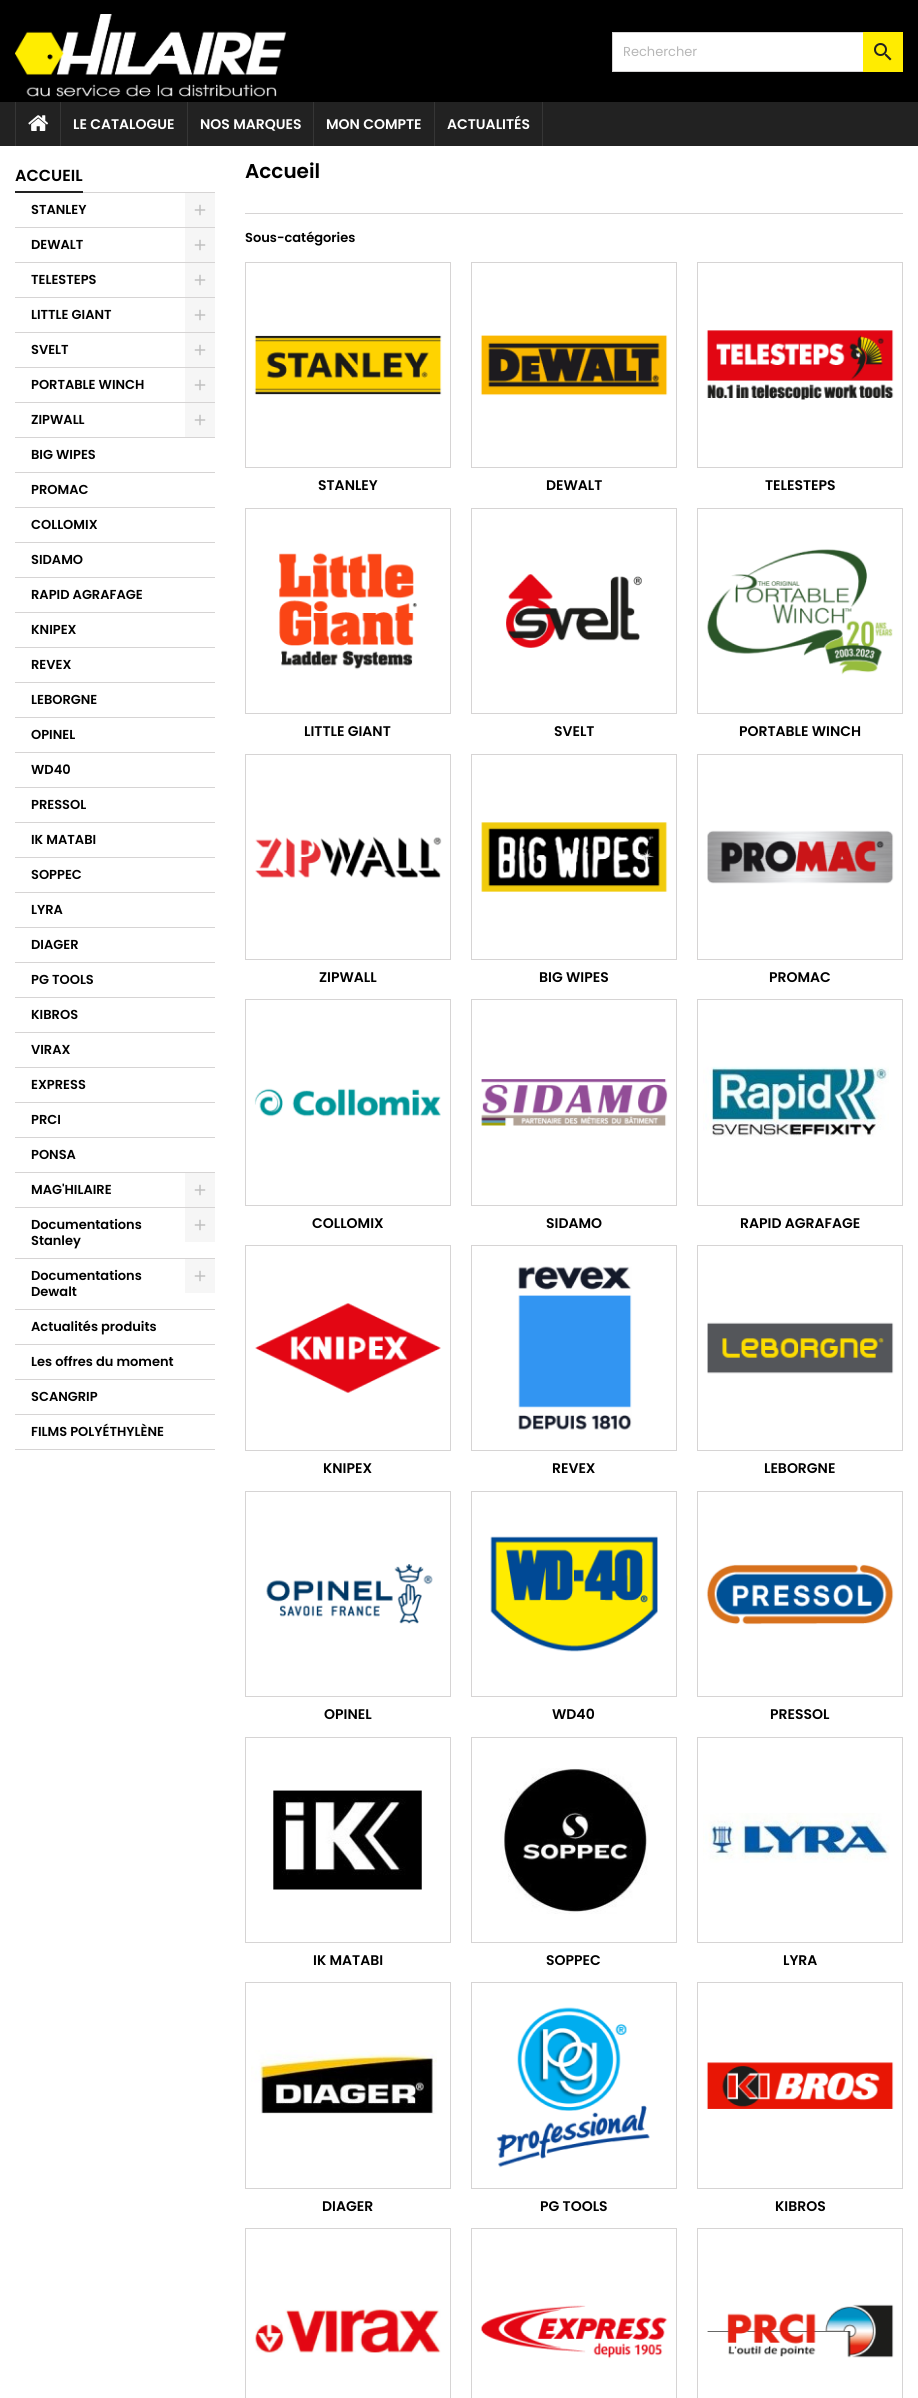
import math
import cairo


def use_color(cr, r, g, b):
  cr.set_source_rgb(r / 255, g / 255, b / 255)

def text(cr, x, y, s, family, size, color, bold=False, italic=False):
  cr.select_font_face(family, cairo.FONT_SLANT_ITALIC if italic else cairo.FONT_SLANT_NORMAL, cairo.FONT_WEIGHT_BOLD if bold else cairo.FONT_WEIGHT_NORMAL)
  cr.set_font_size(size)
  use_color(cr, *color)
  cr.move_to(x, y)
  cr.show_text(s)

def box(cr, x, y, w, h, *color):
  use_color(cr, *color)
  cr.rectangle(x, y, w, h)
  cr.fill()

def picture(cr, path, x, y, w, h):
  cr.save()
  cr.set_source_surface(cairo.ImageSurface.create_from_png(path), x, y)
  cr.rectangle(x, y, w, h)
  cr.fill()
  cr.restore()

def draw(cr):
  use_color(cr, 255, 255, 255)
  cr.paint()
  box(cr, 0, 0, 918, 102, 0, 0, 0)
  picture(cr, "img_01.png", 15, 14, 272, 83)
  box(cr, 613, 33, 250, 38, 255, 255, 255)
  cr.rectangle(612.5, 32.5, 290, 39)
  use_color(cr, 214, 212, 212)
  cr.set_line_width(1)
  cr.stroke()
  box(cr, 863, 32, 40, 40, 255, 236, 0)
  picture(cr, "img_02.png", 874, 43, 18, 18)
  box(cr, 0, 102, 918, 44, 34, 34, 34)
  box(cr, 15, 102, 1, 44, 54, 54, 54)
  picture(cr, "img_03.png", 28, 115, 21, 16)
  box(cr, 60, 102, 1, 44, 54, 54, 54)
  box(cr, 187, 102, 1, 44, 54, 54, 54)
  box(cr, 313, 102, 1, 44, 54, 54, 54)
  box(cr, 542, 102, 1, 44, 54, 54, 54)
  box(cr, 434, 102, 1, 44, 54, 54, 54)
  box(cr, 83, 192, 132, 1, 214, 212, 212)
  box(cr, 15, 191, 68, 2, 34, 34, 34)
  box(cr, 15, 227, 200, 1, 214, 212, 212)
  box(cr, 185, 193, 30, 34, 246, 246, 246)
  picture(cr, "img_04.png", 194, 204, 12, 12)
  box(cr, 15, 262, 200, 1, 214, 212, 212)
  box(cr, 185, 228, 30, 34, 246, 246, 246)
  picture(cr, "img_04.png", 194, 239, 12, 12)
  box(cr, 15, 297, 200, 1, 214, 212, 212)
  box(cr, 185, 263, 30, 34, 246, 246, 246)
  picture(cr, "img_04.png", 194, 274, 12, 12)
  box(cr, 15, 332, 200, 1, 214, 212, 212)
  box(cr, 185, 298, 30, 34, 246, 246, 246)
  picture(cr, "img_04.png", 194, 309, 12, 12)
  box(cr, 15, 367, 200, 1, 214, 212, 212)
  box(cr, 185, 333, 30, 34, 246, 246, 246)
  picture(cr, "img_04.png", 194, 344, 12, 12)
  box(cr, 15, 402, 200, 1, 214, 212, 212)
  box(cr, 185, 368, 30, 34, 246, 246, 246)
  picture(cr, "img_04.png", 194, 379, 12, 12)
  box(cr, 15, 437, 200, 1, 214, 212, 212)
  box(cr, 185, 403, 30, 34, 246, 246, 246)
  picture(cr, "img_04.png", 194, 414, 12, 12)
  box(cr, 15, 472, 200, 1, 214, 212, 212)
  box(cr, 15, 507, 200, 1, 214, 212, 212)
  box(cr, 15, 542, 200, 1, 214, 212, 212)
  box(cr, 15, 577, 200, 1, 214, 212, 212)
  box(cr, 15, 612, 200, 1, 214, 212, 212)
  box(cr, 15, 647, 200, 1, 214, 212, 212)
  box(cr, 15, 682, 200, 1, 214, 212, 212)
  box(cr, 15, 717, 200, 1, 214, 212, 212)
  box(cr, 15, 752, 200, 1, 214, 212, 212)
  box(cr, 15, 787, 200, 1, 214, 212, 212)
  box(cr, 15, 822, 200, 1, 214, 212, 212)
  box(cr, 15, 857, 200, 1, 214, 212, 212)
  box(cr, 15, 892, 200, 1, 214, 212, 212)
  box(cr, 15, 927, 200, 1, 214, 212, 212)
  box(cr, 15, 962, 200, 1, 214, 212, 212)
  box(cr, 15, 997, 200, 1, 214, 212, 212)
  box(cr, 15, 1032, 200, 1, 214, 212, 212)
  box(cr, 15, 1067, 200, 1, 214, 212, 212)
  box(cr, 15, 1102, 200, 1, 214, 212, 212)
  box(cr, 15, 1137, 200, 1, 214, 212, 212)
  box(cr, 15, 1172, 200, 1, 214, 212, 212)
  box(cr, 15, 1207, 200, 1, 214, 212, 212)
  box(cr, 185, 1173, 30, 34, 246, 246, 246)
  picture(cr, "img_04.png", 194, 1184, 12, 12)
  box(cr, 15, 1258, 200, 1, 214, 212, 212)
  box(cr, 185, 1208, 30, 34, 246, 246, 246)
  picture(cr, "img_04.png", 194, 1219, 12, 12)
  box(cr, 15, 1309, 200, 1, 214, 212, 212)
  box(cr, 185, 1259, 30, 34, 246, 246, 246)
  picture(cr, "img_04.png", 194, 1270, 12, 12)
  box(cr, 15, 1344, 200, 1, 214, 212, 212)
  box(cr, 15, 1379, 200, 1, 214, 212, 212)
  box(cr, 15, 1414, 200, 1, 214, 212, 212)
  box(cr, 15, 1449, 200, 1, 214, 212, 212)
  box(cr, 245, 213, 658, 1, 214, 212, 212)
  cr.rectangle(245.5, 262.5, 205, 205)
  cr.stroke()
  picture(cr, "img_05.png", 254, 335, 188, 60)
  cr.rectangle(471.5, 262.5, 205, 205)
  cr.stroke()
  picture(cr, "img_06.png", 480, 335, 188, 61)
  cr.rectangle(697.5, 262.5, 205, 205)
  cr.stroke()
  picture(cr, "img_07.png", 706, 330, 188, 70)
  cr.rectangle(245.5, 508.5, 205, 205)
  cr.stroke()
  picture(cr, "img_08.png", 279, 552, 138, 118)
  cr.rectangle(471.5, 508.5, 205, 205)
  cr.stroke()
  picture(cr, "img_09.png", 506, 574, 136, 74)
  cr.rectangle(697.5, 508.5, 205, 205)
  cr.stroke()
  picture(cr, "img_10.png", 707, 549, 186, 126)
  cr.rectangle(245.5, 754.5, 205, 205)
  cr.stroke()
  picture(cr, "img_11.png", 255, 836, 187, 42)
  cr.rectangle(471.5, 754.5, 205, 205)
  cr.stroke()
  picture(cr, "img_12.png", 481, 822, 187, 70)
  cr.rectangle(697.5, 754.5, 205, 205)
  cr.stroke()
  picture(cr, "img_13.png", 707, 830, 187, 54)
  cr.rectangle(245.5, 999.5, 205, 206)
  cr.stroke()
  picture(cr, "img_14.png", 254, 1088, 187, 29)
  cr.rectangle(471.5, 999.5, 205, 206)
  cr.stroke()
  picture(cr, "img_15.png", 481, 1079, 187, 47)
  cr.rectangle(697.5, 999.5, 205, 206)
  cr.stroke()
  picture(cr, "img_16.png", 703, 1066, 186, 71)
  cr.rectangle(245.5, 1245.5, 205, 205)
  cr.stroke()
  picture(cr, "img_17.png", 255, 1303, 186, 90)
  cr.rectangle(471.5, 1245.5, 205, 205)
  cr.stroke()
  picture(cr, "img_18.png", 518, 1266, 114, 164)
  cr.rectangle(697.5, 1245.5, 205, 205)
  cr.stroke()
  picture(cr, "img_19.png", 707, 1322, 187, 52)
  cr.rectangle(245.5, 1491.5, 205, 205)
  cr.stroke()
  picture(cr, "img_20.png", 266, 1564, 167, 60)
  cr.rectangle(471.5, 1491.5, 205, 205)
  cr.stroke()
  picture(cr, "img_21.png", 490, 1536, 168, 116)
  cr.rectangle(697.5, 1491.5, 205, 205)
  cr.stroke()
  picture(cr, "img_22.png", 706, 1564, 188, 61)
  cr.rectangle(245.5, 1737.5, 205, 205)
  cr.stroke()
  picture(cr, "img_23.png", 273, 1790, 149, 100)
  cr.rectangle(471.5, 1737.5, 205, 205)
  cr.stroke()
  picture(cr, "img_24.png", 500, 1768, 148, 146)
  cr.rectangle(697.5, 1737.5, 205, 205)
  cr.stroke()
  picture(cr, "img_25.png", 703, 1813, 187, 50)
  cr.rectangle(245.5, 1982.5, 205, 206)
  cr.stroke()
  picture(cr, "img_26.png", 251, 2050, 186, 64)
  cr.rectangle(471.5, 1982.5, 205, 206)
  cr.stroke()
  picture(cr, "img_27.png", 496, 2007, 154, 161)
  cr.rectangle(697.5, 1982.5, 205, 206)
  cr.stroke()
  picture(cr, "img_28.png", 706, 2062, 188, 47)
  cr.rectangle(245.5, 2228.5, 205, 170)
  cr.stroke()
  picture(cr, "img_29.png", 255, 2309, 186, 44)
  cr.rectangle(471.5, 2228.5, 205, 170)
  cr.stroke()
  picture(cr, "img_30.png", 480, 2305, 188, 54)
  cr.rectangle(697.5, 2228.5, 205, 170)
  cr.stroke()
  picture(cr, "img_31.png", 707, 2304, 187, 54)
  text(cr, 623, 56, "Rechercher", "Poppins", 13, (183, 183, 183))
  text(cr, 73, 129, "LE CATALOGUE", "Poppins SemiBold", 14, (255, 255, 255))
  text(cr, 200, 129, "NOS MARQUES", "Poppins SemiBold", 14, (255, 255, 255))
  text(cr, 326, 129, "MON COMPTE", "Poppins SemiBold", 14, (255, 255, 255))
  text(cr, 447, 129, "ACTUALITÉS", "Poppins SemiBold", 14, (255, 255, 255))
  text(cr, 15, 181, "ACCUEIL", "Poppins SemiBold", 16, (0, 0, 0))
  text(cr, 31, 214, "STANLEY", "Poppins SemiBold", 13, (0, 0, 0))
  text(cr, 31, 249, "DEWALT", "Poppins SemiBold", 13, (0, 0, 0))
  text(cr, 31, 284, "TELESTEPS", "Poppins SemiBold", 13, (0, 0, 0))
  text(cr, 31, 319, "LITTLE GIANT", "Poppins SemiBold", 13, (0, 0, 0))
  text(cr, 31, 354, "SVELT", "Poppins SemiBold", 13, (0, 0, 0))
  text(cr, 31, 389, "PORTABLE WINCH", "Poppins SemiBold", 13, (0, 0, 0))
  text(cr, 31, 424, "ZIPWALL", "Poppins SemiBold", 13, (0, 0, 0))
  text(cr, 31, 459, "BIG WIPES", "Poppins SemiBold", 13, (0, 0, 0))
  text(cr, 31, 494, "PROMAC", "Poppins SemiBold", 13, (0, 0, 0))
  text(cr, 31, 529, "COLLOMIX", "Poppins SemiBold", 13, (0, 0, 0))
  text(cr, 31, 564, "SIDAMO", "Poppins SemiBold", 13, (0, 0, 0))
  text(cr, 31, 599, "RAPID AGRAFAGE", "Poppins SemiBold", 13, (0, 0, 0))
  text(cr, 31, 634, "KNIPEX", "Poppins SemiBold", 13, (0, 0, 0))
  text(cr, 31, 669, "REVEX", "Poppins SemiBold", 13, (0, 0, 0))
  text(cr, 31, 704, "LEBORGNE", "Poppins SemiBold", 13, (0, 0, 0))
  text(cr, 31, 739, "OPINEL", "Poppins SemiBold", 13, (0, 0, 0))
  text(cr, 31, 774, "WD40", "Poppins SemiBold", 13, (0, 0, 0))
  text(cr, 31, 809, "PRESSOL", "Poppins SemiBold", 13, (0, 0, 0))
  text(cr, 31, 844, "IK MATABI", "Poppins SemiBold", 13, (0, 0, 0))
  text(cr, 31, 879, "SOPPEC", "Poppins SemiBold", 13, (0, 0, 0))
  text(cr, 31, 914, "LYRA", "Poppins SemiBold", 13, (0, 0, 0))
  text(cr, 31, 949, "DIAGER", "Poppins SemiBold", 13, (0, 0, 0))
  text(cr, 31, 984, "PG TOOLS", "Poppins SemiBold", 13, (0, 0, 0))
  text(cr, 31, 1019, "KIBROS", "Poppins SemiBold", 13, (0, 0, 0))
  text(cr, 31, 1054, "VIRAX", "Poppins SemiBold", 13, (0, 0, 0))
  text(cr, 31, 1089, "EXPRESS", "Poppins SemiBold", 13, (0, 0, 0))
  text(cr, 31, 1124, "PRCI", "Poppins SemiBold", 13, (0, 0, 0))
  text(cr, 31, 1159, "PONSA", "Poppins SemiBold", 13, (0, 0, 0))
  text(cr, 31, 1194, "MAG'HILAIRE", "Poppins SemiBold", 13, (0, 0, 0))
  text(cr, 31, 1229, "Documentations", "Poppins SemiBold", 13, (0, 0, 0))
  text(cr, 31, 1245, "Stanley", "Poppins SemiBold", 13, (0, 0, 0))
  text(cr, 31, 1280, "Documentations", "Poppins SemiBold", 13, (0, 0, 0))
  text(cr, 31, 1296, "Dewalt", "Poppins SemiBold", 13, (0, 0, 0))
  text(cr, 31, 1331, "Actualités produits", "Poppins SemiBold", 13, (0, 0, 0))
  text(cr, 31, 1366, "Les offres du moment", "Poppins SemiBold", 13, (0, 0, 0))
  text(cr, 31, 1401, "SCANGRIP", "Poppins SemiBold", 13, (0, 0, 0))
  text(cr, 31, 1436, "FILMS POLYÉTHYLÈNE", "Poppins SemiBold", 13, (0, 0, 0))
  text(cr, 245, 178, "Accueil", "Poppins SemiBold", 20, (0, 0, 0))
  text(cr, 245, 242, "Sous-catégories", "Poppins SemiBold", 13, (0, 0, 0))
  text(cr, 318, 490, "STANLEY", "Poppins SemiBold", 14, (0, 0, 0))
  text(cr, 546, 490, "DEWALT", "Poppins SemiBold", 14, (0, 0, 0))
  text(cr, 765, 490, "TELESTEPS", "Poppins SemiBold", 14, (0, 0, 0))
  text(cr, 304, 736, "LITTLE GIANT", "Poppins SemiBold", 14, (0, 0, 0))
  text(cr, 554, 736, "SVELT", "Poppins SemiBold", 14, (0, 0, 0))
  text(cr, 739, 736, "PORTABLE WINCH", "Poppins SemiBold", 14, (0, 0, 0))
  text(cr, 319, 982, "ZIPWALL", "Poppins SemiBold", 14, (0, 0, 0))
  text(cr, 539, 982, "BIG WIPES", "Poppins SemiBold", 14, (0, 0, 0))
  text(cr, 769, 982, "PROMAC", "Poppins SemiBold", 14, (0, 0, 0))
  text(cr, 312, 1228, "COLLOMIX", "Poppins SemiBold", 14, (0, 0, 0))
  text(cr, 546, 1228, "SIDAMO", "Poppins SemiBold", 14, (0, 0, 0))
  text(cr, 740, 1228, "RAPID AGRAFAGE", "Poppins SemiBold", 14, (0, 0, 0))
  text(cr, 323, 1473, "KNIPEX", "Poppins SemiBold", 14, (0, 0, 0))
  text(cr, 552, 1473, "REVEX", "Poppins SemiBold", 14, (0, 0, 0))
  text(cr, 764, 1473, "LEBORGNE", "Poppins SemiBold", 14, (0, 0, 0))
  text(cr, 324, 1719, "OPINEL", "Poppins SemiBold", 14, (0, 0, 0))
  text(cr, 552, 1719, "WD40", "Poppins SemiBold", 14, (0, 0, 0))
  text(cr, 770, 1719, "PRESSOL", "Poppins SemiBold", 14, (0, 0, 0))
  text(cr, 313, 1965, "IK MATABI", "Poppins SemiBold", 14, (0, 0, 0))
  text(cr, 546, 1965, "SOPPEC", "Poppins SemiBold", 14, (0, 0, 0))
  text(cr, 783, 1965, "LYRA", "Poppins SemiBold", 14, (0, 0, 0))
  text(cr, 322, 2211, "DIAGER", "Poppins SemiBold", 14, (0, 0, 0))
  text(cr, 540, 2211, "PG TOOLS", "Poppins SemiBold", 14, (0, 0, 0))
  text(cr, 775, 2211, "KIBROS", "Poppins SemiBold", 14, (0, 0, 0))


surface = cairo.ImageSurface(cairo.FORMAT_RGB24, 918, 2398)
cr = cairo.Context(surface)
options = cairo.FontOptions()
options.set_hint_metrics(cairo.HINT_METRICS_OFF)
options.set_hint_style(cairo.HINT_STYLE_NONE)
cr.set_font_options(options)
cr.set_miter_limit(4)
draw(cr)
surface.write_to_png("out.png")
